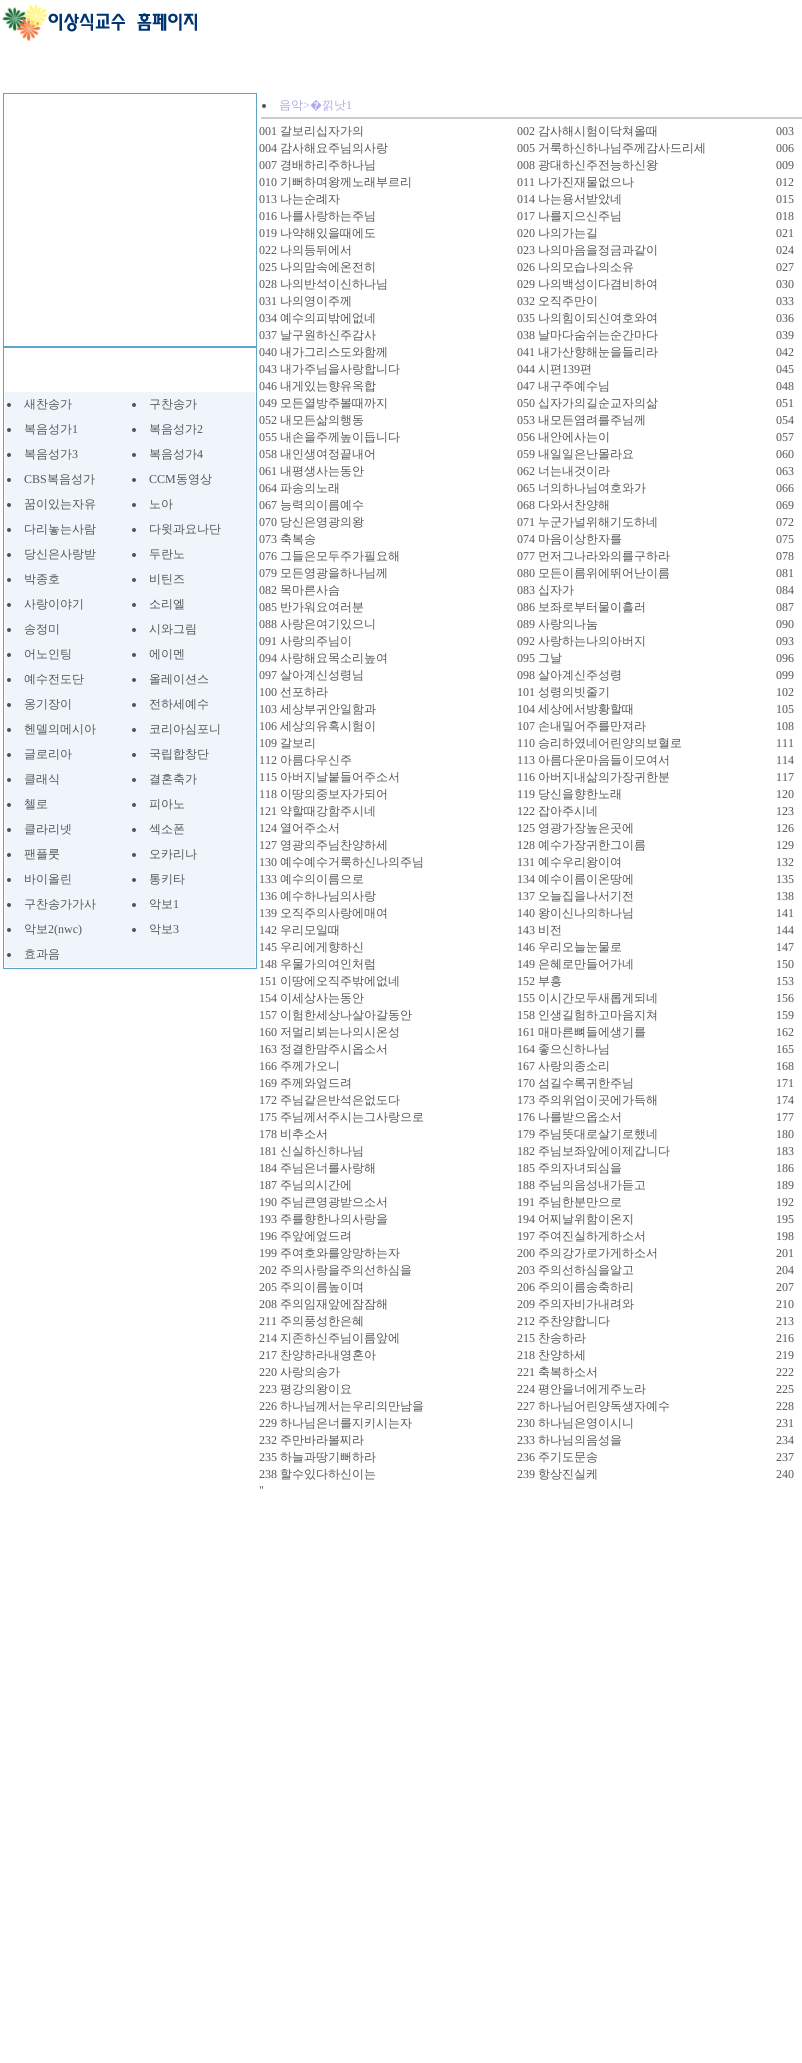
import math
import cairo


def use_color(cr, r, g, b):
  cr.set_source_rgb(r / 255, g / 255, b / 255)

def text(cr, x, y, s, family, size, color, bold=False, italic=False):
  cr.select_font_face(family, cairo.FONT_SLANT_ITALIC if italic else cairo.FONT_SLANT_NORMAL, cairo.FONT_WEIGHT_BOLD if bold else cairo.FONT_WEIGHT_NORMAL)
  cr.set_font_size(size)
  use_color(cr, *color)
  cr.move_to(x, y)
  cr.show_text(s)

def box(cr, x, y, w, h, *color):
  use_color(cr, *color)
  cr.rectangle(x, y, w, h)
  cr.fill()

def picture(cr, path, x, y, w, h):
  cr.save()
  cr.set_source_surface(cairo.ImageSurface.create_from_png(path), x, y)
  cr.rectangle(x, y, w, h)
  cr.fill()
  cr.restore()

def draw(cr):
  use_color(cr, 255, 255, 255)
  cr.paint()
  picture(cr, "img_01.png", 2, 4, 196, 37)
  box(cr, 3, 93, 254, 1, 92, 164, 204)
  box(cr, 256, 93, 1, 254, 92, 164, 204)
  box(cr, 3, 346, 254, 2, 92, 164, 204)
  box(cr, 3, 93, 1, 254, 92, 164, 204)
  box(cr, 256, 347, 1, 622, 92, 164, 204)
  box(cr, 3, 968, 254, 1, 92, 164, 204)
  box(cr, 3, 347, 1, 622, 92, 164, 204)
  box(cr, 5, 392, 250, 25, 240, 245, 251)
  use_color(cr, 85, 85, 85)
  cr.arc(9, 405, 2, 0, 2 * math.pi)
  cr.fill()
  cr.arc(134, 405, 2, 0, 2 * math.pi)
  cr.fill()
  box(cr, 5, 417, 250, 25, 240, 245, 251)
  use_color(cr, 85, 85, 85)
  cr.arc(9, 430, 2, 0, 2 * math.pi)
  cr.fill()
  cr.arc(134, 430, 2, 0, 2 * math.pi)
  cr.fill()
  box(cr, 5, 442, 250, 25, 240, 245, 251)
  use_color(cr, 85, 85, 85)
  cr.arc(9, 455, 2, 0, 2 * math.pi)
  cr.fill()
  cr.arc(134, 455, 2, 0, 2 * math.pi)
  cr.fill()
  box(cr, 5, 467, 250, 25, 240, 245, 251)
  use_color(cr, 85, 85, 85)
  cr.arc(9, 480, 2, 0, 2 * math.pi)
  cr.fill()
  cr.arc(134, 480, 2, 0, 2 * math.pi)
  cr.fill()
  box(cr, 5, 492, 250, 25, 240, 245, 251)
  use_color(cr, 85, 85, 85)
  cr.arc(9, 505, 2, 0, 2 * math.pi)
  cr.fill()
  cr.arc(134, 505, 2, 0, 2 * math.pi)
  cr.fill()
  box(cr, 5, 517, 250, 25, 240, 245, 251)
  use_color(cr, 85, 85, 85)
  cr.arc(9, 530, 2, 0, 2 * math.pi)
  cr.fill()
  cr.arc(134, 530, 2, 0, 2 * math.pi)
  cr.fill()
  box(cr, 5, 542, 250, 25, 240, 245, 251)
  use_color(cr, 85, 85, 85)
  cr.arc(9, 555, 2, 0, 2 * math.pi)
  cr.fill()
  cr.arc(134, 555, 2, 0, 2 * math.pi)
  cr.fill()
  box(cr, 5, 567, 250, 25, 240, 245, 251)
  use_color(cr, 85, 85, 85)
  cr.arc(9, 580, 2, 0, 2 * math.pi)
  cr.fill()
  cr.arc(134, 580, 2, 0, 2 * math.pi)
  cr.fill()
  box(cr, 5, 592, 250, 25, 240, 245, 251)
  use_color(cr, 85, 85, 85)
  cr.arc(9, 605, 2, 0, 2 * math.pi)
  cr.fill()
  cr.arc(134, 605, 2, 0, 2 * math.pi)
  cr.fill()
  box(cr, 5, 617, 250, 25, 240, 245, 251)
  use_color(cr, 85, 85, 85)
  cr.arc(9, 630, 2, 0, 2 * math.pi)
  cr.fill()
  cr.arc(134, 630, 2, 0, 2 * math.pi)
  cr.fill()
  box(cr, 5, 642, 250, 25, 240, 245, 251)
  use_color(cr, 85, 85, 85)
  cr.arc(9, 655, 2, 0, 2 * math.pi)
  cr.fill()
  cr.arc(134, 655, 2, 0, 2 * math.pi)
  cr.fill()
  box(cr, 5, 667, 250, 25, 240, 245, 251)
  use_color(cr, 85, 85, 85)
  cr.arc(9, 680, 2, 0, 2 * math.pi)
  cr.fill()
  cr.arc(134, 680, 2, 0, 2 * math.pi)
  cr.fill()
  box(cr, 5, 692, 250, 25, 240, 245, 251)
  use_color(cr, 85, 85, 85)
  cr.arc(9, 705, 2, 0, 2 * math.pi)
  cr.fill()
  cr.arc(134, 705, 2, 0, 2 * math.pi)
  cr.fill()
  box(cr, 5, 717, 250, 25, 240, 245, 251)
  use_color(cr, 85, 85, 85)
  cr.arc(9, 730, 2, 0, 2 * math.pi)
  cr.fill()
  cr.arc(134, 730, 2, 0, 2 * math.pi)
  cr.fill()
  box(cr, 5, 742, 250, 25, 240, 245, 251)
  use_color(cr, 85, 85, 85)
  cr.arc(9, 755, 2, 0, 2 * math.pi)
  cr.fill()
  cr.arc(134, 755, 2, 0, 2 * math.pi)
  cr.fill()
  box(cr, 5, 767, 250, 25, 240, 245, 251)
  use_color(cr, 85, 85, 85)
  cr.arc(9, 780, 2, 0, 2 * math.pi)
  cr.fill()
  cr.arc(134, 780, 2, 0, 2 * math.pi)
  cr.fill()
  box(cr, 5, 792, 250, 25, 240, 245, 251)
  use_color(cr, 85, 85, 85)
  cr.arc(9, 805, 2, 0, 2 * math.pi)
  cr.fill()
  cr.arc(134, 805, 2, 0, 2 * math.pi)
  cr.fill()
  box(cr, 5, 817, 250, 25, 240, 245, 251)
  use_color(cr, 85, 85, 85)
  cr.arc(9, 830, 2, 0, 2 * math.pi)
  cr.fill()
  cr.arc(134, 830, 2, 0, 2 * math.pi)
  cr.fill()
  box(cr, 5, 842, 250, 25, 240, 245, 251)
  use_color(cr, 85, 85, 85)
  cr.arc(9, 855, 2, 0, 2 * math.pi)
  cr.fill()
  cr.arc(134, 855, 2, 0, 2 * math.pi)
  cr.fill()
  box(cr, 5, 867, 250, 25, 240, 245, 251)
  use_color(cr, 85, 85, 85)
  cr.arc(9, 880, 2, 0, 2 * math.pi)
  cr.fill()
  cr.arc(134, 880, 2, 0, 2 * math.pi)
  cr.fill()
  box(cr, 5, 892, 250, 25, 240, 245, 251)
  use_color(cr, 85, 85, 85)
  cr.arc(9, 905, 2, 0, 2 * math.pi)
  cr.fill()
  cr.arc(134, 905, 2, 0, 2 * math.pi)
  cr.fill()
  box(cr, 5, 917, 250, 25, 240, 245, 251)
  use_color(cr, 85, 85, 85)
  cr.arc(9, 930, 2, 0, 2 * math.pi)
  cr.fill()
  cr.arc(134, 930, 2, 0, 2 * math.pi)
  cr.fill()
  box(cr, 5, 942, 250, 25, 240, 245, 251)
  use_color(cr, 85, 85, 85)
  cr.arc(9, 955, 2, 0, 2 * math.pi)
  cr.fill()
  cr.arc(264, 106, 2, 0, 2 * math.pi)
  cr.fill()
  box(cr, 261, 117, 541, 2, 204, 204, 204)
  text(cr, 24, 408, "새찬송가", "WenQuanYi Zen Hei Medium", 12, (85, 85, 85))
  text(cr, 149, 408, "구찬송가", "WenQuanYi Zen Hei Medium", 12, (85, 85, 85))
  text(cr, 24, 433, "복음성가", "WenQuanYi Zen Hei Medium", 12, (85, 85, 85))
  text(cr, 72, 433, "1", "Liberation Serif", 12, (85, 85, 85))
  text(cr, 149, 433, "복음성가", "WenQuanYi Zen Hei Medium", 12, (85, 85, 85))
  text(cr, 197, 433, "2", "Liberation Serif", 12, (85, 85, 85))
  text(cr, 24, 458, "복음성가", "WenQuanYi Zen Hei Medium", 12, (85, 85, 85))
  text(cr, 72, 458, "3", "Liberation Serif", 12, (85, 85, 85))
  text(cr, 149, 458, "복음성가", "WenQuanYi Zen Hei Medium", 12, (85, 85, 85))
  text(cr, 197, 458, "4", "Liberation Serif", 12, (85, 85, 85))
  text(cr, 24, 483, "CBS", "Liberation Serif", 12, (85, 85, 85))
  text(cr, 47, 483, "복음성가", "WenQuanYi Zen Hei Medium", 12, (85, 85, 85))
  text(cr, 149, 483, "CCM", "Liberation Serif", 12, (85, 85, 85))
  text(cr, 176, 483, "동영상", "WenQuanYi Zen Hei Medium", 12, (85, 85, 85))
  text(cr, 24, 508, "꿈이있는자유", "WenQuanYi Zen Hei Medium", 12, (85, 85, 85))
  text(cr, 149, 508, "노아", "WenQuanYi Zen Hei Medium", 12, (85, 85, 85))
  text(cr, 24, 533, "다리놓는사람", "WenQuanYi Zen Hei Medium", 12, (85, 85, 85))
  text(cr, 149, 533, "다윗과요나단", "WenQuanYi Zen Hei Medium", 12, (85, 85, 85))
  text(cr, 24, 558, "당신은사랑받", "WenQuanYi Zen Hei Medium", 12, (85, 85, 85))
  text(cr, 149, 558, "두란노", "WenQuanYi Zen Hei Medium", 12, (85, 85, 85))
  text(cr, 24, 583, "박종호", "WenQuanYi Zen Hei Medium", 12, (85, 85, 85))
  text(cr, 149, 583, "비틴즈", "WenQuanYi Zen Hei Medium", 12, (85, 85, 85))
  text(cr, 24, 608, "사랑이야기", "WenQuanYi Zen Hei Medium", 12, (85, 85, 85))
  text(cr, 149, 608, "소리엘", "WenQuanYi Zen Hei Medium", 12, (85, 85, 85))
  text(cr, 24, 633, "송정미", "WenQuanYi Zen Hei Medium", 12, (85, 85, 85))
  text(cr, 149, 633, "시와그림", "WenQuanYi Zen Hei Medium", 12, (85, 85, 85))
  text(cr, 24, 658, "어노인팅", "WenQuanYi Zen Hei Medium", 12, (85, 85, 85))
  text(cr, 149, 658, "에이멘", "WenQuanYi Zen Hei Medium", 12, (85, 85, 85))
  text(cr, 24, 683, "예수전도단", "WenQuanYi Zen Hei Medium", 12, (85, 85, 85))
  text(cr, 149, 683, "올레이션스", "WenQuanYi Zen Hei Medium", 12, (85, 85, 85))
  text(cr, 24, 708, "옹기장이", "WenQuanYi Zen Hei Medium", 12, (85, 85, 85))
  text(cr, 149, 708, "전하세예수", "WenQuanYi Zen Hei Medium", 12, (85, 85, 85))
  text(cr, 24, 733, "헨델의메시아", "WenQuanYi Zen Hei Medium", 12, (85, 85, 85))
  text(cr, 149, 733, "코리아심포니", "WenQuanYi Zen Hei Medium", 12, (85, 85, 85))
  text(cr, 24, 758, "글로리아", "WenQuanYi Zen Hei Medium", 12, (85, 85, 85))
  text(cr, 149, 758, "국립합창단", "WenQuanYi Zen Hei Medium", 12, (85, 85, 85))
  text(cr, 24, 783, "클래식", "WenQuanYi Zen Hei Medium", 12, (85, 85, 85))
  text(cr, 149, 783, "결혼축가", "WenQuanYi Zen Hei Medium", 12, (85, 85, 85))
  text(cr, 24, 808, "첼로", "WenQuanYi Zen Hei Medium", 12, (85, 85, 85))
  text(cr, 149, 808, "피아노", "WenQuanYi Zen Hei Medium", 12, (85, 85, 85))
  text(cr, 24, 833, "클라리넷", "WenQuanYi Zen Hei Medium", 12, (85, 85, 85))
  text(cr, 149, 833, "섹소폰", "WenQuanYi Zen Hei Medium", 12, (85, 85, 85))
  text(cr, 24, 858, "팬플룻", "WenQuanYi Zen Hei Medium", 12, (85, 85, 85))
  text(cr, 149, 858, "오카리나", "WenQuanYi Zen Hei Medium", 12, (85, 85, 85))
  text(cr, 24, 883, "바이올린", "WenQuanYi Zen Hei Medium", 12, (85, 85, 85))
  text(cr, 149, 883, "통키타", "WenQuanYi Zen Hei Medium", 12, (85, 85, 85))
  text(cr, 24, 908, "구찬송가가사", "WenQuanYi Zen Hei Medium", 12, (85, 85, 85))
  text(cr, 149, 908, "악보", "WenQuanYi Zen Hei Medium", 12, (85, 85, 85))
  text(cr, 173, 908, "1", "Liberation Serif", 12, (85, 85, 85))
  text(cr, 24, 933, "악보", "WenQuanYi Zen Hei Medium", 12, (85, 85, 85))
  text(cr, 48, 933, "2(nwc)", "Liberation Serif", 12, (85, 85, 85))
  text(cr, 149, 933, "악보", "WenQuanYi Zen Hei Medium", 12, (85, 85, 85))
  text(cr, 173, 933, "3", "Liberation Serif", 12, (85, 85, 85))
  text(cr, 24, 958, "효과음", "WenQuanYi Zen Hei Medium", 12, (85, 85, 85))
  text(cr, 279, 109, "음악", "WenQuanYi Zen Hei Medium", 12, (170, 170, 238))
  text(cr, 303, 109, ">", "Liberation Serif", 12, (170, 170, 238))
  text(cr, 310, 109, "�", "Noto Sans", 12, (170, 170, 238))
  text(cr, 322, 109, "낅낫", "WenQuanYi Zen Hei Medium", 12, (170, 170, 238))
  text(cr, 346, 109, "1", "Liberation Serif", 12, (170, 170, 238))
  text(cr, 259, 135, "001", "Liberation Serif", 12, (85, 85, 85))
  text(cr, 280, 135, "갈보리십자가의", "WenQuanYi Zen Hei Medium", 12, (85, 85, 85))
  text(cr, 517, 135, "002", "Liberation Serif", 12, (85, 85, 85))
  text(cr, 538, 135, "감사해시험이닥쳐올때", "WenQuanYi Zen Hei Medium", 12, (85, 85, 85))
  text(cr, 776, 135, "003", "Liberation Serif", 12, (85, 85, 85))
  text(cr, 259, 152, "004", "Liberation Serif", 12, (85, 85, 85))
  text(cr, 280, 152, "감사해요주님의사랑", "WenQuanYi Zen Hei Medium", 12, (85, 85, 85))
  text(cr, 517, 152, "005", "Liberation Serif", 12, (85, 85, 85))
  text(cr, 538, 152, "거룩하신하나님주께감사드리세", "WenQuanYi Zen Hei Medium", 12, (85, 85, 85))
  text(cr, 776, 152, "006", "Liberation Serif", 12, (85, 85, 85))
  text(cr, 259, 169, "007", "Liberation Serif", 12, (85, 85, 85))
  text(cr, 280, 169, "경배하리주하나님", "WenQuanYi Zen Hei Medium", 12, (85, 85, 85))
  text(cr, 517, 169, "008", "Liberation Serif", 12, (85, 85, 85))
  text(cr, 538, 169, "광대하신주전능하신왕", "WenQuanYi Zen Hei Medium", 12, (85, 85, 85))
  text(cr, 776, 169, "009", "Liberation Serif", 12, (85, 85, 85))
  text(cr, 259, 186, "010", "Liberation Serif", 12, (85, 85, 85))
  text(cr, 280, 186, "기뻐하며왕께노래부르리", "WenQuanYi Zen Hei Medium", 12, (85, 85, 85))
  text(cr, 517, 186, "011", "Liberation Serif", 12, (85, 85, 85))
  text(cr, 538, 186, "나가진재물없으나", "WenQuanYi Zen Hei Medium", 12, (85, 85, 85))
  text(cr, 776, 186, "012", "Liberation Serif", 12, (85, 85, 85))
  text(cr, 259, 203, "013", "Liberation Serif", 12, (85, 85, 85))
  text(cr, 280, 203, "나는순례자", "WenQuanYi Zen Hei Medium", 12, (85, 85, 85))
  text(cr, 517, 203, "014", "Liberation Serif", 12, (85, 85, 85))
  text(cr, 538, 203, "나는용서받았네", "WenQuanYi Zen Hei Medium", 12, (85, 85, 85))
  text(cr, 776, 203, "015", "Liberation Serif", 12, (85, 85, 85))
  text(cr, 259, 220, "016", "Liberation Serif", 12, (85, 85, 85))
  text(cr, 280, 220, "나를사랑하는주님", "WenQuanYi Zen Hei Medium", 12, (85, 85, 85))
  text(cr, 517, 220, "017", "Liberation Serif", 12, (85, 85, 85))
  text(cr, 538, 220, "나를지으신주님", "WenQuanYi Zen Hei Medium", 12, (85, 85, 85))
  text(cr, 776, 220, "018", "Liberation Serif", 12, (85, 85, 85))
  text(cr, 259, 237, "019", "Liberation Serif", 12, (85, 85, 85))
  text(cr, 280, 237, "나약해있을때에도", "WenQuanYi Zen Hei Medium", 12, (85, 85, 85))
  text(cr, 517, 237, "020", "Liberation Serif", 12, (85, 85, 85))
  text(cr, 538, 237, "나의가는길", "WenQuanYi Zen Hei Medium", 12, (85, 85, 85))
  text(cr, 776, 237, "021", "Liberation Serif", 12, (85, 85, 85))
  text(cr, 259, 254, "022", "Liberation Serif", 12, (85, 85, 85))
  text(cr, 280, 254, "나의등뒤에서", "WenQuanYi Zen Hei Medium", 12, (85, 85, 85))
  text(cr, 517, 254, "023", "Liberation Serif", 12, (85, 85, 85))
  text(cr, 538, 254, "나의마음을정금과같이", "WenQuanYi Zen Hei Medium", 12, (85, 85, 85))
  text(cr, 776, 254, "024", "Liberation Serif", 12, (85, 85, 85))
  text(cr, 259, 271, "025", "Liberation Serif", 12, (85, 85, 85))
  text(cr, 280, 271, "나의맘속에온전히", "WenQuanYi Zen Hei Medium", 12, (85, 85, 85))
  text(cr, 517, 271, "026", "Liberation Serif", 12, (85, 85, 85))
  text(cr, 538, 271, "나의모습나의소유", "WenQuanYi Zen Hei Medium", 12, (85, 85, 85))
  text(cr, 776, 271, "027", "Liberation Serif", 12, (85, 85, 85))
  text(cr, 259, 288, "028", "Liberation Serif", 12, (85, 85, 85))
  text(cr, 280, 288, "나의반석이신하나님", "WenQuanYi Zen Hei Medium", 12, (85, 85, 85))
  text(cr, 517, 288, "029", "Liberation Serif", 12, (85, 85, 85))
  text(cr, 538, 288, "나의백성이다겸비하여", "WenQuanYi Zen Hei Medium", 12, (85, 85, 85))
  text(cr, 776, 288, "030", "Liberation Serif", 12, (85, 85, 85))
  text(cr, 259, 305, "031", "Liberation Serif", 12, (85, 85, 85))
  text(cr, 280, 305, "나의영이주께", "WenQuanYi Zen Hei Medium", 12, (85, 85, 85))
  text(cr, 517, 305, "032", "Liberation Serif", 12, (85, 85, 85))
  text(cr, 538, 305, "오직주만이", "WenQuanYi Zen Hei Medium", 12, (85, 85, 85))
  text(cr, 776, 305, "033", "Liberation Serif", 12, (85, 85, 85))
  text(cr, 259, 322, "034", "Liberation Serif", 12, (85, 85, 85))
  text(cr, 280, 322, "예수의피밖에없네", "WenQuanYi Zen Hei Medium", 12, (85, 85, 85))
  text(cr, 517, 322, "035", "Liberation Serif", 12, (85, 85, 85))
  text(cr, 538, 322, "나의힘이되신여호와여", "WenQuanYi Zen Hei Medium", 12, (85, 85, 85))
  text(cr, 776, 322, "036", "Liberation Serif", 12, (85, 85, 85))
  text(cr, 259, 339, "037", "Liberation Serif", 12, (85, 85, 85))
  text(cr, 280, 339, "날구원하신주감사", "WenQuanYi Zen Hei Medium", 12, (85, 85, 85))
  text(cr, 517, 339, "038", "Liberation Serif", 12, (85, 85, 85))
  text(cr, 538, 339, "날마다숨쉬는순간마다", "WenQuanYi Zen Hei Medium", 12, (85, 85, 85))
  text(cr, 776, 339, "039", "Liberation Serif", 12, (85, 85, 85))
  text(cr, 259, 356, "040", "Liberation Serif", 12, (85, 85, 85))
  text(cr, 280, 356, "내가그리스도와함께", "WenQuanYi Zen Hei Medium", 12, (85, 85, 85))
  text(cr, 517, 356, "041", "Liberation Serif", 12, (85, 85, 85))
  text(cr, 538, 356, "내가산향해눈을들리라", "WenQuanYi Zen Hei Medium", 12, (85, 85, 85))
  text(cr, 776, 356, "042", "Liberation Serif", 12, (85, 85, 85))
  text(cr, 259, 373, "043", "Liberation Serif", 12, (85, 85, 85))
  text(cr, 280, 373, "내가주님을사랑합니다", "WenQuanYi Zen Hei Medium", 12, (85, 85, 85))
  text(cr, 517, 373, "044", "Liberation Serif", 12, (85, 85, 85))
  text(cr, 538, 373, "시편", "WenQuanYi Zen Hei Medium", 12, (85, 85, 85))
  text(cr, 562, 373, "139", "Liberation Serif", 12, (85, 85, 85))
  text(cr, 580, 373, "편", "WenQuanYi Zen Hei Medium", 12, (85, 85, 85))
  text(cr, 776, 373, "045", "Liberation Serif", 12, (85, 85, 85))
  text(cr, 259, 390, "046", "Liberation Serif", 12, (85, 85, 85))
  text(cr, 280, 390, "내게있는향유옥합", "WenQuanYi Zen Hei Medium", 12, (85, 85, 85))
  text(cr, 517, 390, "047", "Liberation Serif", 12, (85, 85, 85))
  text(cr, 538, 390, "내구주예수님", "WenQuanYi Zen Hei Medium", 12, (85, 85, 85))
  text(cr, 776, 390, "048", "Liberation Serif", 12, (85, 85, 85))
  text(cr, 259, 407, "049", "Liberation Serif", 12, (85, 85, 85))
  text(cr, 280, 407, "모든열방주볼때까지", "WenQuanYi Zen Hei Medium", 12, (85, 85, 85))
  text(cr, 517, 407, "050", "Liberation Serif", 12, (85, 85, 85))
  text(cr, 538, 407, "십자가의길순교자의삶", "WenQuanYi Zen Hei Medium", 12, (85, 85, 85))
  text(cr, 776, 407, "051", "Liberation Serif", 12, (85, 85, 85))
  text(cr, 259, 424, "052", "Liberation Serif", 12, (85, 85, 85))
  text(cr, 280, 424, "내모든삶의행동", "WenQuanYi Zen Hei Medium", 12, (85, 85, 85))
  text(cr, 517, 424, "053", "Liberation Serif", 12, (85, 85, 85))
  text(cr, 538, 424, "내모든염려를주님께", "WenQuanYi Zen Hei Medium", 12, (85, 85, 85))
  text(cr, 776, 424, "054", "Liberation Serif", 12, (85, 85, 85))
  text(cr, 259, 441, "055", "Liberation Serif", 12, (85, 85, 85))
  text(cr, 280, 441, "내손을주께높이듭니다", "WenQuanYi Zen Hei Medium", 12, (85, 85, 85))
  text(cr, 517, 441, "056", "Liberation Serif", 12, (85, 85, 85))
  text(cr, 538, 441, "내안에사는이", "WenQuanYi Zen Hei Medium", 12, (85, 85, 85))
  text(cr, 776, 441, "057", "Liberation Serif", 12, (85, 85, 85))
  text(cr, 259, 458, "058", "Liberation Serif", 12, (85, 85, 85))
  text(cr, 280, 458, "내인생여정끝내어", "WenQuanYi Zen Hei Medium", 12, (85, 85, 85))
  text(cr, 517, 458, "059", "Liberation Serif", 12, (85, 85, 85))
  text(cr, 538, 458, "내일일은난몰라요", "WenQuanYi Zen Hei Medium", 12, (85, 85, 85))
  text(cr, 776, 458, "060", "Liberation Serif", 12, (85, 85, 85))
  text(cr, 259, 475, "061", "Liberation Serif", 12, (85, 85, 85))
  text(cr, 280, 475, "내평생사는동안", "WenQuanYi Zen Hei Medium", 12, (85, 85, 85))
  text(cr, 517, 475, "062", "Liberation Serif", 12, (85, 85, 85))
  text(cr, 538, 475, "너는내것이라", "WenQuanYi Zen Hei Medium", 12, (85, 85, 85))
  text(cr, 776, 475, "063", "Liberation Serif", 12, (85, 85, 85))
  text(cr, 259, 492, "064", "Liberation Serif", 12, (85, 85, 85))
  text(cr, 280, 492, "파송의노래", "WenQuanYi Zen Hei Medium", 12, (85, 85, 85))
  text(cr, 517, 492, "065", "Liberation Serif", 12, (85, 85, 85))
  text(cr, 538, 492, "너의하나님여호와가", "WenQuanYi Zen Hei Medium", 12, (85, 85, 85))
  text(cr, 776, 492, "066", "Liberation Serif", 12, (85, 85, 85))
  text(cr, 259, 509, "067", "Liberation Serif", 12, (85, 85, 85))
  text(cr, 280, 509, "능력의이름예수", "WenQuanYi Zen Hei Medium", 12, (85, 85, 85))
  text(cr, 517, 509, "068", "Liberation Serif", 12, (85, 85, 85))
  text(cr, 538, 509, "다와서찬양해", "WenQuanYi Zen Hei Medium", 12, (85, 85, 85))
  text(cr, 776, 509, "069", "Liberation Serif", 12, (85, 85, 85))
  text(cr, 259, 526, "070", "Liberation Serif", 12, (85, 85, 85))
  text(cr, 280, 526, "당신은영광의왕", "WenQuanYi Zen Hei Medium", 12, (85, 85, 85))
  text(cr, 517, 526, "071", "Liberation Serif", 12, (85, 85, 85))
  text(cr, 538, 526, "누군가널위해기도하네", "WenQuanYi Zen Hei Medium", 12, (85, 85, 85))
  text(cr, 776, 526, "072", "Liberation Serif", 12, (85, 85, 85))
  text(cr, 259, 543, "073", "Liberation Serif", 12, (85, 85, 85))
  text(cr, 280, 543, "축복송", "WenQuanYi Zen Hei Medium", 12, (85, 85, 85))
  text(cr, 517, 543, "074", "Liberation Serif", 12, (85, 85, 85))
  text(cr, 538, 543, "마음이상한자를", "WenQuanYi Zen Hei Medium", 12, (85, 85, 85))
  text(cr, 776, 543, "075", "Liberation Serif", 12, (85, 85, 85))
  text(cr, 259, 560, "076", "Liberation Serif", 12, (85, 85, 85))
  text(cr, 280, 560, "그들은모두주가필요해", "WenQuanYi Zen Hei Medium", 12, (85, 85, 85))
  text(cr, 517, 560, "077", "Liberation Serif", 12, (85, 85, 85))
  text(cr, 538, 560, "먼저그나라와의를구하라", "WenQuanYi Zen Hei Medium", 12, (85, 85, 85))
  text(cr, 776, 560, "078", "Liberation Serif", 12, (85, 85, 85))
  text(cr, 259, 577, "079", "Liberation Serif", 12, (85, 85, 85))
  text(cr, 280, 577, "모든영광을하나님께", "WenQuanYi Zen Hei Medium", 12, (85, 85, 85))
  text(cr, 517, 577, "080", "Liberation Serif", 12, (85, 85, 85))
  text(cr, 538, 577, "모든이름위에뛰어난이름", "WenQuanYi Zen Hei Medium", 12, (85, 85, 85))
  text(cr, 776, 577, "081", "Liberation Serif", 12, (85, 85, 85))
  text(cr, 259, 594, "082", "Liberation Serif", 12, (85, 85, 85))
  text(cr, 280, 594, "목마른사슴", "WenQuanYi Zen Hei Medium", 12, (85, 85, 85))
  text(cr, 517, 594, "083", "Liberation Serif", 12, (85, 85, 85))
  text(cr, 538, 594, "십자가", "WenQuanYi Zen Hei Medium", 12, (85, 85, 85))
  text(cr, 776, 594, "084", "Liberation Serif", 12, (85, 85, 85))
  text(cr, 259, 611, "085", "Liberation Serif", 12, (85, 85, 85))
  text(cr, 280, 611, "반가워요여러분", "WenQuanYi Zen Hei Medium", 12, (85, 85, 85))
  text(cr, 517, 611, "086", "Liberation Serif", 12, (85, 85, 85))
  text(cr, 538, 611, "보좌로부터물이흘러", "WenQuanYi Zen Hei Medium", 12, (85, 85, 85))
  text(cr, 776, 611, "087", "Liberation Serif", 12, (85, 85, 85))
  text(cr, 259, 628, "088", "Liberation Serif", 12, (85, 85, 85))
  text(cr, 280, 628, "사랑은여기있으니", "WenQuanYi Zen Hei Medium", 12, (85, 85, 85))
  text(cr, 517, 628, "089", "Liberation Serif", 12, (85, 85, 85))
  text(cr, 538, 628, "사랑의나눔", "WenQuanYi Zen Hei Medium", 12, (85, 85, 85))
  text(cr, 776, 628, "090", "Liberation Serif", 12, (85, 85, 85))
  text(cr, 259, 645, "091", "Liberation Serif", 12, (85, 85, 85))
  text(cr, 280, 645, "사랑의주님이", "WenQuanYi Zen Hei Medium", 12, (85, 85, 85))
  text(cr, 517, 645, "092", "Liberation Serif", 12, (85, 85, 85))
  text(cr, 538, 645, "사랑하는나의아버지", "WenQuanYi Zen Hei Medium", 12, (85, 85, 85))
  text(cr, 776, 645, "093", "Liberation Serif", 12, (85, 85, 85))
  text(cr, 259, 662, "094", "Liberation Serif", 12, (85, 85, 85))
  text(cr, 280, 662, "사랑해요목소리높여", "WenQuanYi Zen Hei Medium", 12, (85, 85, 85))
  text(cr, 517, 662, "095", "Liberation Serif", 12, (85, 85, 85))
  text(cr, 538, 662, "그날", "WenQuanYi Zen Hei Medium", 12, (85, 85, 85))
  text(cr, 776, 662, "096", "Liberation Serif", 12, (85, 85, 85))
  text(cr, 259, 679, "097", "Liberation Serif", 12, (85, 85, 85))
  text(cr, 280, 679, "살아계신성령님", "WenQuanYi Zen Hei Medium", 12, (85, 85, 85))
  text(cr, 517, 679, "098", "Liberation Serif", 12, (85, 85, 85))
  text(cr, 538, 679, "살아계신주성령", "WenQuanYi Zen Hei Medium", 12, (85, 85, 85))
  text(cr, 776, 679, "099", "Liberation Serif", 12, (85, 85, 85))
  text(cr, 259, 696, "100", "Liberation Serif", 12, (85, 85, 85))
  text(cr, 280, 696, "선포하라", "WenQuanYi Zen Hei Medium", 12, (85, 85, 85))
  text(cr, 517, 696, "101", "Liberation Serif", 12, (85, 85, 85))
  text(cr, 538, 696, "성령의빗줄기", "WenQuanYi Zen Hei Medium", 12, (85, 85, 85))
  text(cr, 776, 696, "102", "Liberation Serif", 12, (85, 85, 85))
  text(cr, 259, 713, "103", "Liberation Serif", 12, (85, 85, 85))
  text(cr, 280, 713, "세상부귀안일함과", "WenQuanYi Zen Hei Medium", 12, (85, 85, 85))
  text(cr, 517, 713, "104", "Liberation Serif", 12, (85, 85, 85))
  text(cr, 538, 713, "세상에서방황할때", "WenQuanYi Zen Hei Medium", 12, (85, 85, 85))
  text(cr, 776, 713, "105", "Liberation Serif", 12, (85, 85, 85))
  text(cr, 259, 730, "106", "Liberation Serif", 12, (85, 85, 85))
  text(cr, 280, 730, "세상의유혹시험이", "WenQuanYi Zen Hei Medium", 12, (85, 85, 85))
  text(cr, 517, 730, "107", "Liberation Serif", 12, (85, 85, 85))
  text(cr, 538, 730, "손내밀어주를만져라", "WenQuanYi Zen Hei Medium", 12, (85, 85, 85))
  text(cr, 776, 730, "108", "Liberation Serif", 12, (85, 85, 85))
  text(cr, 259, 747, "109", "Liberation Serif", 12, (85, 85, 85))
  text(cr, 280, 747, "갈보리", "WenQuanYi Zen Hei Medium", 12, (85, 85, 85))
  text(cr, 517, 747, "110", "Liberation Serif", 12, (85, 85, 85))
  text(cr, 538, 747, "승리하였네어린양의보혈로", "WenQuanYi Zen Hei Medium", 12, (85, 85, 85))
  text(cr, 776, 747, "111", "Liberation Serif", 12, (85, 85, 85))
  text(cr, 259, 764, "112", "Liberation Serif", 12, (85, 85, 85))
  text(cr, 280, 764, "아름다우신주", "WenQuanYi Zen Hei Medium", 12, (85, 85, 85))
  text(cr, 517, 764, "113", "Liberation Serif", 12, (85, 85, 85))
  text(cr, 538, 764, "아름다운마음들이모여서", "WenQuanYi Zen Hei Medium", 12, (85, 85, 85))
  text(cr, 776, 764, "114", "Liberation Serif", 12, (85, 85, 85))
  text(cr, 259, 781, "115", "Liberation Serif", 12, (85, 85, 85))
  text(cr, 280, 781, "아버지날붙들어주소서", "WenQuanYi Zen Hei Medium", 12, (85, 85, 85))
  text(cr, 517, 781, "116", "Liberation Serif", 12, (85, 85, 85))
  text(cr, 538, 781, "아버지내삶의가장귀한분", "WenQuanYi Zen Hei Medium", 12, (85, 85, 85))
  text(cr, 776, 781, "117", "Liberation Serif", 12, (85, 85, 85))
  text(cr, 259, 798, "118", "Liberation Serif", 12, (85, 85, 85))
  text(cr, 280, 798, "이땅의중보자가되어", "WenQuanYi Zen Hei Medium", 12, (85, 85, 85))
  text(cr, 517, 798, "119", "Liberation Serif", 12, (85, 85, 85))
  text(cr, 538, 798, "당신을향한노래", "WenQuanYi Zen Hei Medium", 12, (85, 85, 85))
  text(cr, 776, 798, "120", "Liberation Serif", 12, (85, 85, 85))
  text(cr, 259, 815, "121", "Liberation Serif", 12, (85, 85, 85))
  text(cr, 280, 815, "약할때강함주시네", "WenQuanYi Zen Hei Medium", 12, (85, 85, 85))
  text(cr, 517, 815, "122", "Liberation Serif", 12, (85, 85, 85))
  text(cr, 538, 815, "잡아주시네", "WenQuanYi Zen Hei Medium", 12, (85, 85, 85))
  text(cr, 776, 815, "123", "Liberation Serif", 12, (85, 85, 85))
  text(cr, 259, 832, "124", "Liberation Serif", 12, (85, 85, 85))
  text(cr, 280, 832, "열어주소서", "WenQuanYi Zen Hei Medium", 12, (85, 85, 85))
  text(cr, 517, 832, "125", "Liberation Serif", 12, (85, 85, 85))
  text(cr, 538, 832, "영광가장높은곳에", "WenQuanYi Zen Hei Medium", 12, (85, 85, 85))
  text(cr, 776, 832, "126", "Liberation Serif", 12, (85, 85, 85))
  text(cr, 259, 849, "127", "Liberation Serif", 12, (85, 85, 85))
  text(cr, 280, 849, "영광의주님찬양하세", "WenQuanYi Zen Hei Medium", 12, (85, 85, 85))
  text(cr, 517, 849, "128", "Liberation Serif", 12, (85, 85, 85))
  text(cr, 538, 849, "예수가장귀한그이름", "WenQuanYi Zen Hei Medium", 12, (85, 85, 85))
  text(cr, 776, 849, "129", "Liberation Serif", 12, (85, 85, 85))
  text(cr, 259, 866, "130", "Liberation Serif", 12, (85, 85, 85))
  text(cr, 280, 866, "예수예수거룩하신나의주님", "WenQuanYi Zen Hei Medium", 12, (85, 85, 85))
  text(cr, 517, 866, "131", "Liberation Serif", 12, (85, 85, 85))
  text(cr, 538, 866, "예수우리왕이여", "WenQuanYi Zen Hei Medium", 12, (85, 85, 85))
  text(cr, 776, 866, "132", "Liberation Serif", 12, (85, 85, 85))
  text(cr, 259, 883, "133", "Liberation Serif", 12, (85, 85, 85))
  text(cr, 280, 883, "예수의이름으로", "WenQuanYi Zen Hei Medium", 12, (85, 85, 85))
  text(cr, 517, 883, "134", "Liberation Serif", 12, (85, 85, 85))
  text(cr, 538, 883, "예수이름이온땅에", "WenQuanYi Zen Hei Medium", 12, (85, 85, 85))
  text(cr, 776, 883, "135", "Liberation Serif", 12, (85, 85, 85))
  text(cr, 259, 900, "136", "Liberation Serif", 12, (85, 85, 85))
  text(cr, 280, 900, "예수하나님의사랑", "WenQuanYi Zen Hei Medium", 12, (85, 85, 85))
  text(cr, 517, 900, "137", "Liberation Serif", 12, (85, 85, 85))
  text(cr, 538, 900, "오늘집을나서기전", "WenQuanYi Zen Hei Medium", 12, (85, 85, 85))
  text(cr, 776, 900, "138", "Liberation Serif", 12, (85, 85, 85))
  text(cr, 259, 917, "139", "Liberation Serif", 12, (85, 85, 85))
  text(cr, 280, 917, "오직주의사랑에매여", "WenQuanYi Zen Hei Medium", 12, (85, 85, 85))
  text(cr, 517, 917, "140", "Liberation Serif", 12, (85, 85, 85))
  text(cr, 538, 917, "왕이신나의하나님", "WenQuanYi Zen Hei Medium", 12, (85, 85, 85))
  text(cr, 776, 917, "141", "Liberation Serif", 12, (85, 85, 85))
  text(cr, 259, 934, "142", "Liberation Serif", 12, (85, 85, 85))
  text(cr, 280, 934, "우리모일때", "WenQuanYi Zen Hei Medium", 12, (85, 85, 85))
  text(cr, 517, 934, "143", "Liberation Serif", 12, (85, 85, 85))
  text(cr, 538, 934, "비전", "WenQuanYi Zen Hei Medium", 12, (85, 85, 85))
  text(cr, 776, 934, "144", "Liberation Serif", 12, (85, 85, 85))
  text(cr, 259, 951, "145", "Liberation Serif", 12, (85, 85, 85))
  text(cr, 280, 951, "우리에게향하신", "WenQuanYi Zen Hei Medium", 12, (85, 85, 85))
  text(cr, 517, 951, "146", "Liberation Serif", 12, (85, 85, 85))
  text(cr, 538, 951, "우리오늘눈물로", "WenQuanYi Zen Hei Medium", 12, (85, 85, 85))
  text(cr, 776, 951, "147", "Liberation Serif", 12, (85, 85, 85))
  text(cr, 259, 968, "148", "Liberation Serif", 12, (85, 85, 85))
  text(cr, 280, 968, "우물가의여인처럼", "WenQuanYi Zen Hei Medium", 12, (85, 85, 85))
  text(cr, 517, 968, "149", "Liberation Serif", 12, (85, 85, 85))
  text(cr, 538, 968, "은혜로만들어가네", "WenQuanYi Zen Hei Medium", 12, (85, 85, 85))
  text(cr, 776, 968, "150", "Liberation Serif", 12, (85, 85, 85))
  text(cr, 259, 985, "151", "Liberation Serif", 12, (85, 85, 85))
  text(cr, 280, 985, "이땅에오직주밖에없네", "WenQuanYi Zen Hei Medium", 12, (85, 85, 85))
  text(cr, 517, 985, "152", "Liberation Serif", 12, (85, 85, 85))
  text(cr, 538, 985, "부흥", "WenQuanYi Zen Hei Medium", 12, (85, 85, 85))
  text(cr, 776, 985, "153", "Liberation Serif", 12, (85, 85, 85))
  text(cr, 259, 1002, "154", "Liberation Serif", 12, (85, 85, 85))
  text(cr, 280, 1002, "이세상사는동안", "WenQuanYi Zen Hei Medium", 12, (85, 85, 85))
  text(cr, 517, 1002, "155", "Liberation Serif", 12, (85, 85, 85))
  text(cr, 538, 1002, "이시간모두새롭게되네", "WenQuanYi Zen Hei Medium", 12, (85, 85, 85))
  text(cr, 776, 1002, "156", "Liberation Serif", 12, (85, 85, 85))
  text(cr, 259, 1019, "157", "Liberation Serif", 12, (85, 85, 85))
  text(cr, 280, 1019, "이험한세상나살아갈동안", "WenQuanYi Zen Hei Medium", 12, (85, 85, 85))
  text(cr, 517, 1019, "158", "Liberation Serif", 12, (85, 85, 85))
  text(cr, 538, 1019, "인생길험하고마음지쳐", "WenQuanYi Zen Hei Medium", 12, (85, 85, 85))
  text(cr, 776, 1019, "159", "Liberation Serif", 12, (85, 85, 85))
  text(cr, 259, 1036, "160", "Liberation Serif", 12, (85, 85, 85))
  text(cr, 280, 1036, "저멀리뵈는나의시온성", "WenQuanYi Zen Hei Medium", 12, (85, 85, 85))
  text(cr, 517, 1036, "161", "Liberation Serif", 12, (85, 85, 85))
  text(cr, 538, 1036, "매마른뼈들에생기를", "WenQuanYi Zen Hei Medium", 12, (85, 85, 85))
  text(cr, 776, 1036, "162", "Liberation Serif", 12, (85, 85, 85))
  text(cr, 259, 1053, "163", "Liberation Serif", 12, (85, 85, 85))
  text(cr, 280, 1053, "정결한맘주시옵소서", "WenQuanYi Zen Hei Medium", 12, (85, 85, 85))
  text(cr, 517, 1053, "164", "Liberation Serif", 12, (85, 85, 85))
  text(cr, 538, 1053, "좋으신하나님", "WenQuanYi Zen Hei Medium", 12, (85, 85, 85))
  text(cr, 776, 1053, "165", "Liberation Serif", 12, (85, 85, 85))
  text(cr, 259, 1070, "166", "Liberation Serif", 12, (85, 85, 85))
  text(cr, 280, 1070, "주께가오니", "WenQuanYi Zen Hei Medium", 12, (85, 85, 85))
  text(cr, 517, 1070, "167", "Liberation Serif", 12, (85, 85, 85))
  text(cr, 538, 1070, "사랑의종소리", "WenQuanYi Zen Hei Medium", 12, (85, 85, 85))
  text(cr, 776, 1070, "168", "Liberation Serif", 12, (85, 85, 85))
  text(cr, 259, 1087, "169", "Liberation Serif", 12, (85, 85, 85))
  text(cr, 280, 1087, "주께와엎드려", "WenQuanYi Zen Hei Medium", 12, (85, 85, 85))
  text(cr, 517, 1087, "170", "Liberation Serif", 12, (85, 85, 85))
  text(cr, 538, 1087, "섬길수록귀한주님", "WenQuanYi Zen Hei Medium", 12, (85, 85, 85))
  text(cr, 776, 1087, "171", "Liberation Serif", 12, (85, 85, 85))
  text(cr, 259, 1104, "172", "Liberation Serif", 12, (85, 85, 85))
  text(cr, 280, 1104, "주님같은반석은없도다", "WenQuanYi Zen Hei Medium", 12, (85, 85, 85))
  text(cr, 517, 1104, "173", "Liberation Serif", 12, (85, 85, 85))
  text(cr, 538, 1104, "주의위엄이곳에가득해", "WenQuanYi Zen Hei Medium", 12, (85, 85, 85))
  text(cr, 776, 1104, "174", "Liberation Serif", 12, (85, 85, 85))
  text(cr, 259, 1121, "175", "Liberation Serif", 12, (85, 85, 85))
  text(cr, 280, 1121, "주님께서주시는그사랑으로", "WenQuanYi Zen Hei Medium", 12, (85, 85, 85))
  text(cr, 517, 1121, "176", "Liberation Serif", 12, (85, 85, 85))
  text(cr, 538, 1121, "나를받으옵소서", "WenQuanYi Zen Hei Medium", 12, (85, 85, 85))
  text(cr, 776, 1121, "177", "Liberation Serif", 12, (85, 85, 85))
  text(cr, 259, 1138, "178", "Liberation Serif", 12, (85, 85, 85))
  text(cr, 280, 1138, "비추소서", "WenQuanYi Zen Hei Medium", 12, (85, 85, 85))
  text(cr, 517, 1138, "179", "Liberation Serif", 12, (85, 85, 85))
  text(cr, 538, 1138, "주님뜻대로살기로했네", "WenQuanYi Zen Hei Medium", 12, (85, 85, 85))
  text(cr, 776, 1138, "180", "Liberation Serif", 12, (85, 85, 85))
  text(cr, 259, 1155, "181", "Liberation Serif", 12, (85, 85, 85))
  text(cr, 280, 1155, "신실하신하나님", "WenQuanYi Zen Hei Medium", 12, (85, 85, 85))
  text(cr, 517, 1155, "182", "Liberation Serif", 12, (85, 85, 85))
  text(cr, 538, 1155, "주님보좌앞에이제갑니다", "WenQuanYi Zen Hei Medium", 12, (85, 85, 85))
  text(cr, 776, 1155, "183", "Liberation Serif", 12, (85, 85, 85))
  text(cr, 259, 1172, "184", "Liberation Serif", 12, (85, 85, 85))
  text(cr, 280, 1172, "주님은너를사랑해", "WenQuanYi Zen Hei Medium", 12, (85, 85, 85))
  text(cr, 517, 1172, "185", "Liberation Serif", 12, (85, 85, 85))
  text(cr, 538, 1172, "주의자녀되심을", "WenQuanYi Zen Hei Medium", 12, (85, 85, 85))
  text(cr, 776, 1172, "186", "Liberation Serif", 12, (85, 85, 85))
  text(cr, 259, 1189, "187", "Liberation Serif", 12, (85, 85, 85))
  text(cr, 280, 1189, "주님의시간에", "WenQuanYi Zen Hei Medium", 12, (85, 85, 85))
  text(cr, 517, 1189, "188", "Liberation Serif", 12, (85, 85, 85))
  text(cr, 538, 1189, "주님의음성내가듣고", "WenQuanYi Zen Hei Medium", 12, (85, 85, 85))
  text(cr, 776, 1189, "189", "Liberation Serif", 12, (85, 85, 85))
  text(cr, 259, 1206, "190", "Liberation Serif", 12, (85, 85, 85))
  text(cr, 280, 1206, "주님큰영광받으소서", "WenQuanYi Zen Hei Medium", 12, (85, 85, 85))
  text(cr, 517, 1206, "191", "Liberation Serif", 12, (85, 85, 85))
  text(cr, 538, 1206, "주님한분만으로", "WenQuanYi Zen Hei Medium", 12, (85, 85, 85))
  text(cr, 776, 1206, "192", "Liberation Serif", 12, (85, 85, 85))
  text(cr, 259, 1223, "193", "Liberation Serif", 12, (85, 85, 85))
  text(cr, 280, 1223, "주를향한나의사랑을", "WenQuanYi Zen Hei Medium", 12, (85, 85, 85))
  text(cr, 517, 1223, "194", "Liberation Serif", 12, (85, 85, 85))
  text(cr, 538, 1223, "어찌날위함이온지", "WenQuanYi Zen Hei Medium", 12, (85, 85, 85))
  text(cr, 776, 1223, "195", "Liberation Serif", 12, (85, 85, 85))
  text(cr, 259, 1240, "196", "Liberation Serif", 12, (85, 85, 85))
  text(cr, 280, 1240, "주앞에엎드려", "WenQuanYi Zen Hei Medium", 12, (85, 85, 85))
  text(cr, 517, 1240, "197", "Liberation Serif", 12, (85, 85, 85))
  text(cr, 538, 1240, "주여진실하게하소서", "WenQuanYi Zen Hei Medium", 12, (85, 85, 85))
  text(cr, 776, 1240, "198", "Liberation Serif", 12, (85, 85, 85))
  text(cr, 259, 1257, "199", "Liberation Serif", 12, (85, 85, 85))
  text(cr, 280, 1257, "주여호와를앙망하는자", "WenQuanYi Zen Hei Medium", 12, (85, 85, 85))
  text(cr, 517, 1257, "200", "Liberation Serif", 12, (85, 85, 85))
  text(cr, 538, 1257, "주의강가로가게하소서", "WenQuanYi Zen Hei Medium", 12, (85, 85, 85))
  text(cr, 776, 1257, "201", "Liberation Serif", 12, (85, 85, 85))
  text(cr, 259, 1274, "202", "Liberation Serif", 12, (85, 85, 85))
  text(cr, 280, 1274, "주의사랑을주의선하심을", "WenQuanYi Zen Hei Medium", 12, (85, 85, 85))
  text(cr, 517, 1274, "203", "Liberation Serif", 12, (85, 85, 85))
  text(cr, 538, 1274, "주의선하심을알고", "WenQuanYi Zen Hei Medium", 12, (85, 85, 85))
  text(cr, 776, 1274, "204", "Liberation Serif", 12, (85, 85, 85))
  text(cr, 259, 1291, "205", "Liberation Serif", 12, (85, 85, 85))
  text(cr, 280, 1291, "주의이름높이며", "WenQuanYi Zen Hei Medium", 12, (85, 85, 85))
  text(cr, 517, 1291, "206", "Liberation Serif", 12, (85, 85, 85))
  text(cr, 538, 1291, "주의이름송축하리", "WenQuanYi Zen Hei Medium", 12, (85, 85, 85))
  text(cr, 776, 1291, "207", "Liberation Serif", 12, (85, 85, 85))
  text(cr, 259, 1308, "208", "Liberation Serif", 12, (85, 85, 85))
  text(cr, 280, 1308, "주의임재앞에잠잠해", "WenQuanYi Zen Hei Medium", 12, (85, 85, 85))
  text(cr, 517, 1308, "209", "Liberation Serif", 12, (85, 85, 85))
  text(cr, 538, 1308, "주의자비가내려와", "WenQuanYi Zen Hei Medium", 12, (85, 85, 85))
  text(cr, 776, 1308, "210", "Liberation Serif", 12, (85, 85, 85))
  text(cr, 259, 1325, "211", "Liberation Serif", 12, (85, 85, 85))
  text(cr, 280, 1325, "주의풍성한은혜", "WenQuanYi Zen Hei Medium", 12, (85, 85, 85))
  text(cr, 517, 1325, "212", "Liberation Serif", 12, (85, 85, 85))
  text(cr, 538, 1325, "주찬양합니다", "WenQuanYi Zen Hei Medium", 12, (85, 85, 85))
  text(cr, 776, 1325, "213", "Liberation Serif", 12, (85, 85, 85))
  text(cr, 259, 1342, "214", "Liberation Serif", 12, (85, 85, 85))
  text(cr, 280, 1342, "지존하신주님이름앞에", "WenQuanYi Zen Hei Medium", 12, (85, 85, 85))
  text(cr, 517, 1342, "215", "Liberation Serif", 12, (85, 85, 85))
  text(cr, 538, 1342, "찬송하라", "WenQuanYi Zen Hei Medium", 12, (85, 85, 85))
  text(cr, 776, 1342, "216", "Liberation Serif", 12, (85, 85, 85))
  text(cr, 259, 1359, "217", "Liberation Serif", 12, (85, 85, 85))
  text(cr, 280, 1359, "찬양하라내영혼아", "WenQuanYi Zen Hei Medium", 12, (85, 85, 85))
  text(cr, 517, 1359, "218", "Liberation Serif", 12, (85, 85, 85))
  text(cr, 538, 1359, "찬양하세", "WenQuanYi Zen Hei Medium", 12, (85, 85, 85))
  text(cr, 776, 1359, "219", "Liberation Serif", 12, (85, 85, 85))
  text(cr, 259, 1376, "220", "Liberation Serif", 12, (85, 85, 85))
  text(cr, 280, 1376, "사랑의송가", "WenQuanYi Zen Hei Medium", 12, (85, 85, 85))
  text(cr, 517, 1376, "221", "Liberation Serif", 12, (85, 85, 85))
  text(cr, 538, 1376, "축복하소서", "WenQuanYi Zen Hei Medium", 12, (85, 85, 85))
  text(cr, 776, 1376, "222", "Liberation Serif", 12, (85, 85, 85))
  text(cr, 259, 1393, "223", "Liberation Serif", 12, (85, 85, 85))
  text(cr, 280, 1393, "평강의왕이요", "WenQuanYi Zen Hei Medium", 12, (85, 85, 85))
  text(cr, 517, 1393, "224", "Liberation Serif", 12, (85, 85, 85))
  text(cr, 538, 1393, "평안을너에게주노라", "WenQuanYi Zen Hei Medium", 12, (85, 85, 85))
  text(cr, 776, 1393, "225", "Liberation Serif", 12, (85, 85, 85))
  text(cr, 259, 1410, "226", "Liberation Serif", 12, (85, 85, 85))
  text(cr, 280, 1410, "하나님께서는우리의만남을", "WenQuanYi Zen Hei Medium", 12, (85, 85, 85))
  text(cr, 517, 1410, "227", "Liberation Serif", 12, (85, 85, 85))
  text(cr, 538, 1410, "하나님어린양독생자예수", "WenQuanYi Zen Hei Medium", 12, (85, 85, 85))
  text(cr, 776, 1410, "228", "Liberation Serif", 12, (85, 85, 85))
  text(cr, 259, 1427, "229", "Liberation Serif", 12, (85, 85, 85))
  text(cr, 280, 1427, "하나님은너를지키시는자", "WenQuanYi Zen Hei Medium", 12, (85, 85, 85))
  text(cr, 517, 1427, "230", "Liberation Serif", 12, (85, 85, 85))
  text(cr, 538, 1427, "하나님은영이시니", "WenQuanYi Zen Hei Medium", 12, (85, 85, 85))
  text(cr, 776, 1427, "231", "Liberation Serif", 12, (85, 85, 85))
  text(cr, 259, 1444, "232", "Liberation Serif", 12, (85, 85, 85))
  text(cr, 280, 1444, "주만바라볼찌라", "WenQuanYi Zen Hei Medium", 12, (85, 85, 85))
  text(cr, 517, 1444, "233", "Liberation Serif", 12, (85, 85, 85))
  text(cr, 538, 1444, "하나님의음성을", "WenQuanYi Zen Hei Medium", 12, (85, 85, 85))
  text(cr, 776, 1444, "234", "Liberation Serif", 12, (85, 85, 85))
  text(cr, 259, 1461, "235", "Liberation Serif", 12, (85, 85, 85))
  text(cr, 280, 1461, "하늘과땅기뻐하라", "WenQuanYi Zen Hei Medium", 12, (85, 85, 85))
  text(cr, 517, 1461, "236", "Liberation Serif", 12, (85, 85, 85))
  text(cr, 538, 1461, "주기도문송", "WenQuanYi Zen Hei Medium", 12, (85, 85, 85))
  text(cr, 776, 1461, "237", "Liberation Serif", 12, (85, 85, 85))
  text(cr, 259, 1478, "238", "Liberation Serif", 12, (85, 85, 85))
  text(cr, 280, 1478, "할수있다하신이는", "WenQuanYi Zen Hei Medium", 12, (85, 85, 85))
  text(cr, 517, 1478, "239", "Liberation Serif", 12, (85, 85, 85))
  text(cr, 538, 1478, "항상진실케", "WenQuanYi Zen Hei Medium", 12, (85, 85, 85))
  text(cr, 776, 1478, "240", "Liberation Serif", 12, (85, 85, 85))
  text(cr, 259, 1494, "\"", "Liberation Serif", 12, (85, 85, 85))


surface = cairo.ImageSurface(cairo.FORMAT_RGB24, 802, 2063)
cr = cairo.Context(surface)
options = cairo.FontOptions()
options.set_hint_metrics(cairo.HINT_METRICS_OFF)
options.set_hint_style(cairo.HINT_STYLE_NONE)
cr.set_font_options(options)
cr.set_miter_limit(4)
draw(cr)
surface.write_to_png("out.png")
